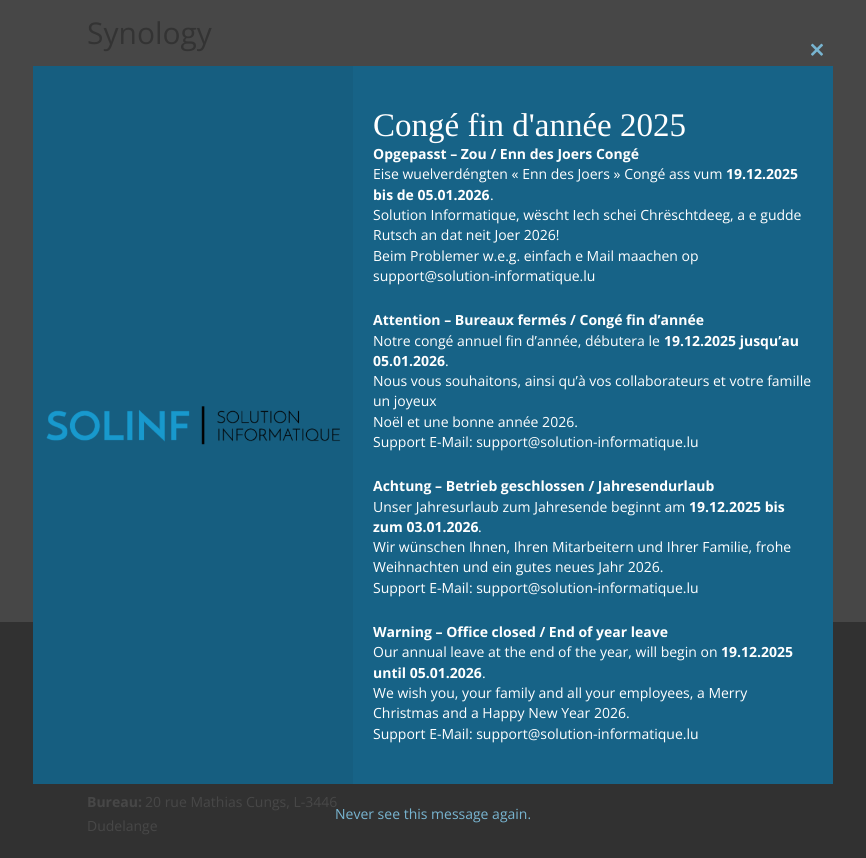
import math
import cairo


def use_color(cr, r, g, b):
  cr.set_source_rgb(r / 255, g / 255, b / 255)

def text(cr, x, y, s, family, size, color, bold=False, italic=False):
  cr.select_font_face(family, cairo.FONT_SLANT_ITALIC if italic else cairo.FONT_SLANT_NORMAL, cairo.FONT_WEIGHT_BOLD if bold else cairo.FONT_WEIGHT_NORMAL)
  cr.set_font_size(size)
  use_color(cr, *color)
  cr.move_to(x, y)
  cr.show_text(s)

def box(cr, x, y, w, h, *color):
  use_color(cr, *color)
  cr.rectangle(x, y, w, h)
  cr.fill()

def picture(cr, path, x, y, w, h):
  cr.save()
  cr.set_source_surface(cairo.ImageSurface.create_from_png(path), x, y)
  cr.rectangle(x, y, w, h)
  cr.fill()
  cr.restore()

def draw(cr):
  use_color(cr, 71, 71, 71)
  cr.paint()
  box(cr, 0, 622, 866, 236, 49, 49, 49)
  box(cr, 353, 66, 480, 718, 23, 99, 135)
  picture(cr, "img_01.png", 811, 43, 12, 13)
  box(cr, 33, 66, 320, 718, 22, 94, 128)
  picture(cr, "img_02.png", 46, 406, 295, 39)
  text(cr, 87, 44, "Synology", "Open Sans", 30, (51, 51, 51))
  text(cr, 87, 807, "Bureau:", "Open Sans", 14, (71, 71, 71), bold=True)
  text(cr, 145, 807, "20 rue Mathias Cungs, L-3446", "Open Sans", 14, (71, 71, 71))
  text(cr, 87, 831, "Dudelange", "Open Sans", 14, (71, 71, 71))
  text(cr, 373, 136, "Congé fin d'année 2025", "Liberation Serif", 33, (255, 255, 255))
  text(cr, 373, 159, "Opgepasst – Zou / Enn des Joers Congé", "Open Sans", 14, (255, 255, 255), bold=True)
  text(cr, 373, 179, "Eise wuelverdéngten « Enn des Joers » Congé ass vum", "Open Sans", 14, (255, 255, 255))
  text(cr, 726, 179, "19.12.2025", "Open Sans", 14, (255, 255, 255), bold=True)
  text(cr, 373, 200, "bis de 05.01.2026", "Open Sans", 14, (255, 255, 255), bold=True)
  text(cr, 490, 200, ".", "Open Sans", 14, (255, 255, 255))
  text(cr, 373, 220, "Solution Informatique, wëscht Iech schei Chrëschtdeeg, a e gudde", "Open Sans", 14, (255, 255, 255))
  text(cr, 373, 240, "Rutsch an dat neit Joer 2026!", "Open Sans", 14, (255, 255, 255))
  text(cr, 373, 261, "Beim Problemer w.e.g. einfach e Mail maachen op", "Open Sans", 14, (255, 255, 255))
  text(cr, 373, 281, "support@solution-informatique.lu", "Open Sans", 14, (255, 255, 255))
  text(cr, 373, 325, "Attention – Bureaux fermés / Congé fin d’année", "Open Sans", 14, (255, 255, 255), bold=True)
  text(cr, 373, 346, "Notre congé annuel fin d’année, débutera le", "Open Sans", 14, (255, 255, 255))
  text(cr, 664, 346, "19.12.2025 jusqu’au", "Open Sans", 14, (255, 255, 255), bold=True)
  text(cr, 373, 366, "05.01.2026", "Open Sans", 14, (255, 255, 255), bold=True)
  text(cr, 445, 366, ".", "Open Sans", 14, (255, 255, 255))
  text(cr, 373, 386, "Nous vous souhaitons, ainsi qu’à vos collaborateurs et votre famille", "Open Sans", 14, (255, 255, 255))
  text(cr, 373, 406, "un joyeux", "Open Sans", 14, (255, 255, 255))
  text(cr, 373, 427, "Noël et une bonne année 2026.", "Open Sans", 14, (255, 255, 255))
  text(cr, 373, 447, "Support E-Mail: support@solution-informatique.lu", "Open Sans", 14, (255, 255, 255))
  text(cr, 373, 491, "Achtung – Betrieb geschlossen / Jahresendurlaub", "Open Sans", 14, (255, 255, 255), bold=True)
  text(cr, 373, 512, "Unser Jahresurlaub zum Jahresende beginnt am", "Open Sans", 14, (255, 255, 255))
  text(cr, 689, 512, "19.12.2025 bis", "Open Sans", 14, (255, 255, 255), bold=True)
  text(cr, 373, 532, "zum 03.01.2026", "Open Sans", 14, (255, 255, 255), bold=True)
  text(cr, 478, 532, ".", "Open Sans", 14, (255, 255, 255))
  text(cr, 373, 552, "Wir wünschen Ihnen, Ihren Mitarbeitern und Ihrer Familie, frohe", "Open Sans", 14, (255, 255, 255))
  text(cr, 373, 572, "Weihnachten und ein gutes neues Jahr 2026.", "Open Sans", 14, (255, 255, 255))
  text(cr, 373, 593, "Support E-Mail: support@solution-informatique.lu", "Open Sans", 14, (255, 255, 255))
  text(cr, 373, 637, "Warning – Office closed / End of year leave", "Open Sans", 14, (255, 255, 255), bold=True)
  text(cr, 373, 657, "Our annual leave at the end of the year, will begin on", "Open Sans", 14, (255, 255, 255))
  text(cr, 721, 657, "19.12.2025", "Open Sans", 14, (255, 255, 255), bold=True)
  text(cr, 373, 678, "until 05.01.2026", "Open Sans", 14, (255, 255, 255), bold=True)
  text(cr, 482, 678, ".", "Open Sans", 14, (255, 255, 255))
  text(cr, 373, 698, "We wish you, your family and all your employees, a Merry", "Open Sans", 14, (255, 255, 255))
  text(cr, 373, 718, "Christmas and a Happy New Year 2026.", "Open Sans", 14, (255, 255, 255))
  text(cr, 373, 739, "Support E-Mail: support@solution-informatique.lu", "Open Sans", 14, (255, 255, 255))
  text(cr, 335, 819, "Never see this message again.", "Open Sans", 14, (120, 181, 209))


surface = cairo.ImageSurface(cairo.FORMAT_RGB24, 866, 858)
cr = cairo.Context(surface)
options = cairo.FontOptions()
options.set_hint_metrics(cairo.HINT_METRICS_OFF)
options.set_hint_style(cairo.HINT_STYLE_NONE)
cr.set_font_options(options)
cr.set_miter_limit(4)
draw(cr)
surface.write_to_png("out.png")
